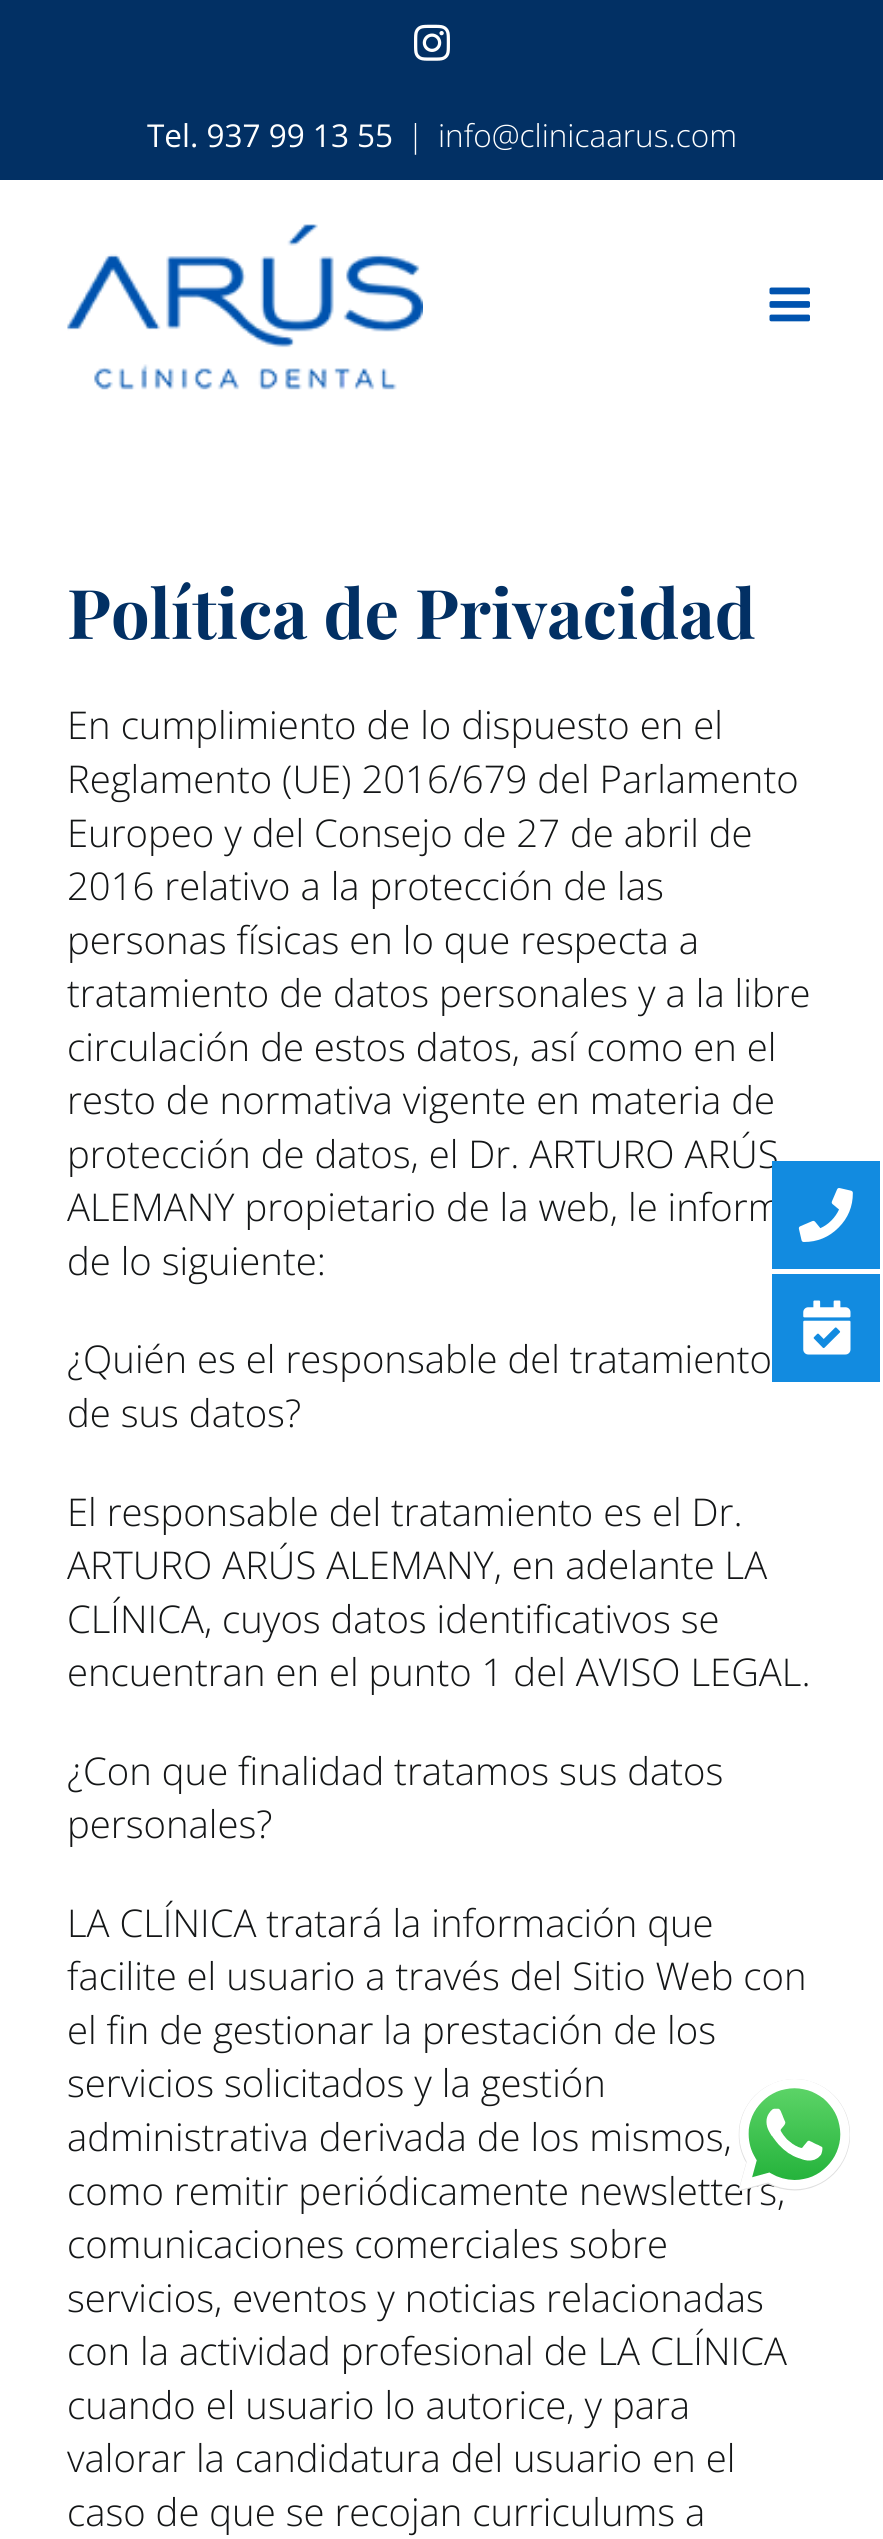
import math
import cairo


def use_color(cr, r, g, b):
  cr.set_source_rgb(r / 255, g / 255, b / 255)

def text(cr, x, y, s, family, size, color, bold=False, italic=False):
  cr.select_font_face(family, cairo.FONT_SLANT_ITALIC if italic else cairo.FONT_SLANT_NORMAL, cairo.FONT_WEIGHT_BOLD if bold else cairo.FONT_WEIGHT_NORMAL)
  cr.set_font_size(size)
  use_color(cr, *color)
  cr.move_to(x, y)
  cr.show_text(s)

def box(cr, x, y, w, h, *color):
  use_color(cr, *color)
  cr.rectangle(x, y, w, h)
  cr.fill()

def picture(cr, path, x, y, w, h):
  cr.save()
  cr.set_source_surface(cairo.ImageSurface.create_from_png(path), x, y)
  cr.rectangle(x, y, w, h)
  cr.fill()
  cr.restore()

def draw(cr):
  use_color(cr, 255, 255, 255)
  cr.paint()
  box(cr, 0, 0, 883, 180, 2, 48, 100)
  picture(cr, "img_01.png", 414, 24, 36, 37)
  picture(cr, "img_02.png", 67, 224, 356, 166)
  picture(cr, "img_03.png", 769, 287, 41, 35)
  box(cr, 772, 1274, 108, 108, 18, 139, 224)
  picture(cr, "img_05.png", 803, 1300, 48, 55)
  text(cr, 147, 147, "Tel. 937 99 13 55", "Open Sans", 31.5, (255, 255, 255))
  text(cr, 407, 147, "|", "Open Sans Light", 31.5, (255, 255, 255))
  text(cr, 438, 147, "info@clinicaarus.com", "Open Sans Light", 31.5, (255, 255, 255))
  text(cr, 67, 639, "Política de Privacidad", "Playfair Display", 68.5, (2, 48, 100), bold=True)
  text(cr, 67, 739, "En cumplimiento de lo dispuesto en el", "Open Sans Light", 38.25, (20, 22, 23))
  text(cr, 67, 793, "Reglamento (UE) 2016/679 del Parlamento", "Open Sans Light", 38.25, (20, 22, 23))
  text(cr, 67, 847, "Europeo y del Consejo de 27 de abril de", "Open Sans Light", 38.25, (20, 22, 23))
  text(cr, 67, 900, "2016 relativo a la protección de las", "Open Sans Light", 38.25, (20, 22, 23))
  text(cr, 67, 954, "personas físicas en lo que respecta a", "Open Sans Light", 38.25, (20, 22, 23))
  text(cr, 67, 1007, "tratamiento de datos personales y a la libre", "Open Sans Light", 38.25, (20, 22, 23))
  text(cr, 67, 1061, "circulación de estos datos, así como en el", "Open Sans Light", 38.25, (20, 22, 23))
  text(cr, 67, 1114, "resto de normativa vigente en materia de", "Open Sans Light", 38.25, (20, 22, 23))
  text(cr, 67, 1168, "protección de datos, el Dr. ARTURO ARÚS", "Open Sans Light", 38.25, (20, 22, 23))
  text(cr, 67, 1221, "ALEMANY propietario de la web, le inform", "Open Sans Light", 38.25, (20, 22, 23))
  text(cr, 67, 1275, "de lo siguiente:", "Open Sans Light", 38.25, (20, 22, 23))
  text(cr, 67, 1373, "¿Quién es el responsable del tratamiento", "Open Sans Light", 38.25, (20, 22, 23))
  text(cr, 67, 1427, "de sus datos?", "Open Sans Light", 38.25, (20, 22, 23))
  text(cr, 67, 1526, "El responsable del tratamiento es el Dr.", "Open Sans Light", 38.25, (20, 22, 23))
  text(cr, 67, 1579, "ARTURO ARÚS ALEMANY, en adelante LA", "Open Sans Light", 38.25, (20, 22, 23))
  text(cr, 67, 1633, "CLÍNICA, cuyos datos identificativos se", "Open Sans Light", 38.25, (20, 22, 23))
  text(cr, 67, 1686, "encuentran en el punto 1 del AVISO LEGAL.", "Open Sans Light", 38.25, (20, 22, 23))
  text(cr, 67, 1785, "¿Con que finalidad tratamos sus datos", "Open Sans Light", 38.25, (20, 22, 23))
  text(cr, 67, 1838, "personales?", "Open Sans Light", 38.25, (20, 22, 23))
  text(cr, 67, 1937, "LA CLÍNICA tratará la información que", "Open Sans Light", 38.25, (20, 22, 23))
  text(cr, 67, 1990, "facilite el usuario a través del Sitio Web con", "Open Sans Light", 38.25, (20, 22, 23))
  text(cr, 67, 2044, "el fin de gestionar la prestación de los", "Open Sans Light", 38.25, (20, 22, 23))
  text(cr, 67, 2097, "servicios solicitados y la gestión", "Open Sans Light", 38.25, (20, 22, 23))
  text(cr, 67, 2151, "administrativa derivada de los mismos,", "Open Sans Light", 38.25, (20, 22, 23))
  text(cr, 67, 2205, "como remitir periódicamente newsletters,", "Open Sans Light", 38.25, (20, 22, 23))
  text(cr, 67, 2258, "comunicaciones comerciales sobre", "Open Sans Light", 38.25, (20, 22, 23))
  text(cr, 67, 2312, "servicios, eventos y noticias relacionadas", "Open Sans Light", 38.25, (20, 22, 23))
  text(cr, 67, 2365, "con la actividad profesional de LA CLÍNICA", "Open Sans Light", 38.25, (20, 22, 23))
  text(cr, 67, 2419, "cuando el usuario lo autorice, y para", "Open Sans Light", 38.25, (20, 22, 23))
  text(cr, 67, 2472, "valorar la candidatura del usuario en el", "Open Sans Light", 38.25, (20, 22, 23))
  text(cr, 67, 2526, "caso de que se recojan curriculums a", "Open Sans Light", 38.25, (20, 22, 23))
  box(cr, 772, 1161, 108, 108, 18, 139, 224)
  picture(cr, "img_04.png", 798, 1188, 55, 54)
  picture(cr, "img_06.png", 738, 2079, 112, 113)


surface = cairo.ImageSurface(cairo.FORMAT_RGB24, 883, 2539)
cr = cairo.Context(surface)
options = cairo.FontOptions()
options.set_hint_metrics(cairo.HINT_METRICS_OFF)
options.set_hint_style(cairo.HINT_STYLE_NONE)
cr.set_font_options(options)
cr.set_miter_limit(4)
draw(cr)
surface.write_to_png("out.png")
